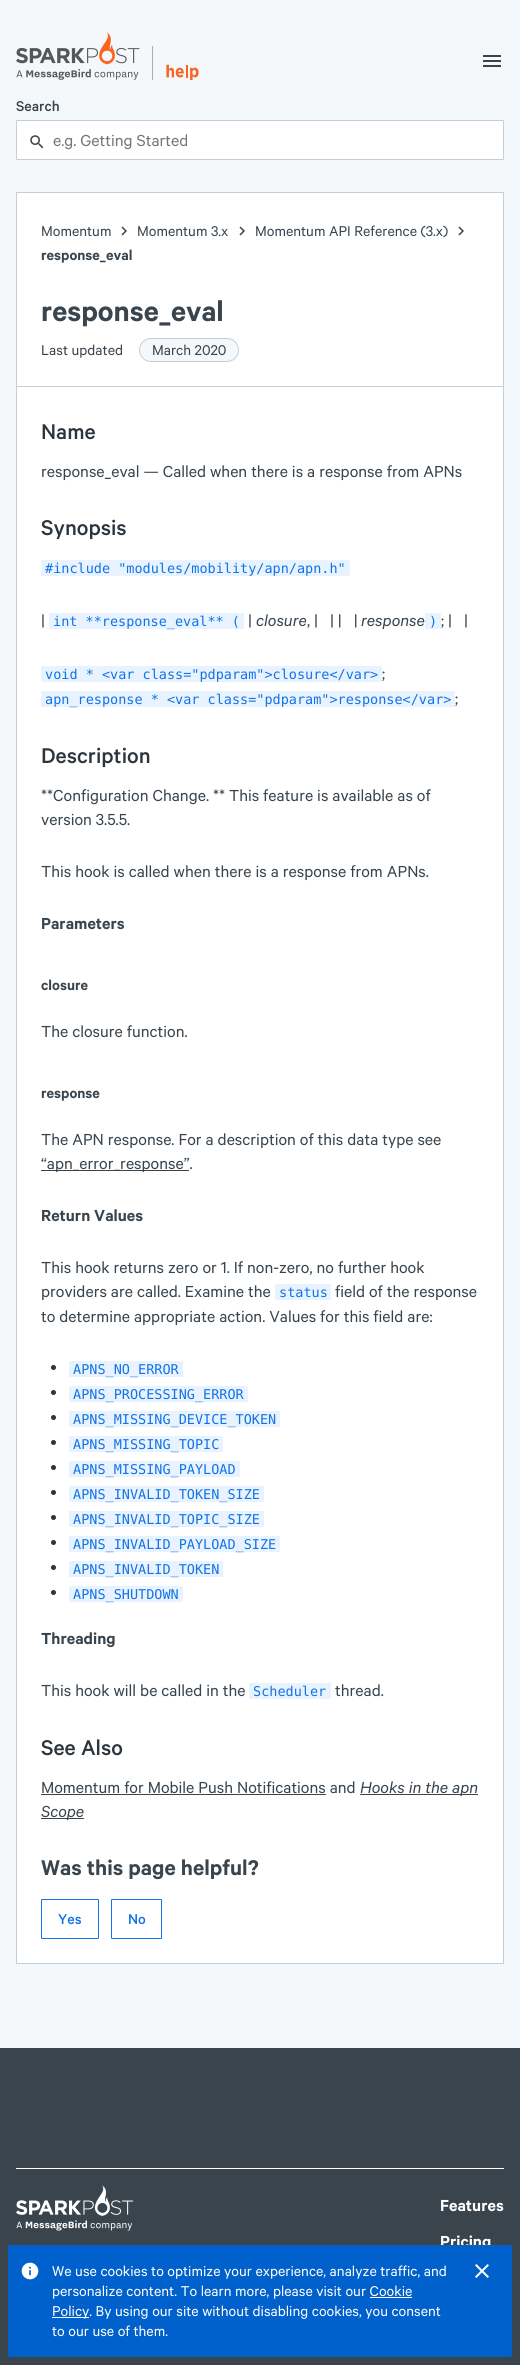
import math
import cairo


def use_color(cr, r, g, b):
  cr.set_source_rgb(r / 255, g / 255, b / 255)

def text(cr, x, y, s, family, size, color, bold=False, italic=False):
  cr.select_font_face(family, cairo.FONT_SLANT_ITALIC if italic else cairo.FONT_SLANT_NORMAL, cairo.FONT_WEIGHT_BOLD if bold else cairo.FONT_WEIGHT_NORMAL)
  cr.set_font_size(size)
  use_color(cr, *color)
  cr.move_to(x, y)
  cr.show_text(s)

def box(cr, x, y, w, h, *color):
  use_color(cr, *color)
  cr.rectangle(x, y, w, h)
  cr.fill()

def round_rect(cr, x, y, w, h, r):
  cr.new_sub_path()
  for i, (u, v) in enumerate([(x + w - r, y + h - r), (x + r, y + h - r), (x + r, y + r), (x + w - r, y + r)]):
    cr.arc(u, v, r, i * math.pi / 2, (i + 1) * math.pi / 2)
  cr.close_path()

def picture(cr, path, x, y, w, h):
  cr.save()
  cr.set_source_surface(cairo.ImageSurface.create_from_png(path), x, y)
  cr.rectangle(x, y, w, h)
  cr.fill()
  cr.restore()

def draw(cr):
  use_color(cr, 245, 248, 250)
  cr.paint()
  picture(cr, "img_01.png", 16, 32, 124, 48)
  box(cr, 152, 46, 1, 34, 162, 173, 184)
  picture(cr, "img_02.png", 166, 64, 33, 16)
  picture(cr, "img_03.png", 483, 55, 18, 12)
  use_color(cr, 255, 255, 255)
  round_rect(cr, 16.5, 120.5, 487, 39, 0.5)
  cr.fill_preserve()
  use_color(cr, 197, 206, 214)
  cr.set_line_width(1)
  cr.stroke()
  picture(cr, "img_04.png", 30, 135, 14, 14)
  use_color(cr, 255, 255, 255)
  cr.rectangle(16.5, 192.5, 487, 1771)
  cr.fill_preserve()
  use_color(cr, 197, 206, 214)
  cr.stroke()
  picture(cr, "img_05.png", 121, 226, 6, 10)
  picture(cr, "img_05.png", 239, 226, 6, 10)
  picture(cr, "img_05.png", 458, 226, 6, 10)
  use_color(cr, 245, 248, 250)
  round_rect(cr, 139.5, 338.5, 99, 23, 11.5)
  cr.fill_preserve()
  use_color(cr, 197, 206, 214)
  cr.stroke()
  box(cr, 17, 386, 486, 1, 197, 206, 214)
  use_color(cr, 232, 243, 255)
  round_rect(cr, 41, 560, 309, 16, 1)
  cr.fill()
  round_rect(cr, 49, 613, 195, 16, 1)
  cr.fill()
  round_rect(cr, 425, 613, 16, 16, 1)
  cr.fill()
  round_rect(cr, 41, 666, 341, 16, 1)
  cr.fill()
  round_rect(cr, 41, 691, 414, 16, 1)
  cr.fill()
  box(cr, 41, 1170, 148, 1, 57, 68, 77)
  use_color(cr, 232, 243, 255)
  round_rect(cr, 275, 1284, 56, 16, 1)
  cr.fill()
  use_color(cr, 44, 53, 61)
  cr.arc(53.5, 1367.5, 2.5, 0, 2 * math.pi)
  cr.fill()
  use_color(cr, 232, 243, 255)
  round_rect(cr, 69, 1361, 114, 16, 1)
  cr.fill()
  use_color(cr, 44, 53, 61)
  cr.arc(53.5, 1392.5, 2.5, 0, 2 * math.pi)
  cr.fill()
  use_color(cr, 232, 243, 255)
  round_rect(cr, 69, 1386, 179, 16, 1)
  cr.fill()
  use_color(cr, 44, 53, 61)
  cr.arc(53.5, 1417.5, 2.5, 0, 2 * math.pi)
  cr.fill()
  use_color(cr, 232, 243, 255)
  round_rect(cr, 69, 1411, 211, 16, 1)
  cr.fill()
  use_color(cr, 44, 53, 61)
  cr.arc(53.5, 1442.5, 2.5, 0, 2 * math.pi)
  cr.fill()
  use_color(cr, 232, 243, 255)
  round_rect(cr, 69, 1436, 154, 16, 1)
  cr.fill()
  use_color(cr, 44, 53, 61)
  cr.arc(53.5, 1467.5, 2.5, 0, 2 * math.pi)
  cr.fill()
  use_color(cr, 232, 243, 255)
  round_rect(cr, 69, 1461, 171, 16, 1)
  cr.fill()
  use_color(cr, 44, 53, 61)
  cr.arc(53.5, 1492.5, 2.5, 0, 2 * math.pi)
  cr.fill()
  use_color(cr, 232, 243, 255)
  round_rect(cr, 69, 1486, 195, 16, 1)
  cr.fill()
  use_color(cr, 44, 53, 61)
  cr.arc(53.5, 1517.5, 2.5, 0, 2 * math.pi)
  cr.fill()
  use_color(cr, 232, 243, 255)
  round_rect(cr, 69, 1511, 195, 16, 1)
  cr.fill()
  use_color(cr, 44, 53, 61)
  cr.arc(53.5, 1542.5, 2.5, 0, 2 * math.pi)
  cr.fill()
  use_color(cr, 232, 243, 255)
  round_rect(cr, 69, 1536, 211, 16, 1)
  cr.fill()
  use_color(cr, 44, 53, 61)
  cr.arc(53.5, 1567.5, 2.5, 0, 2 * math.pi)
  cr.fill()
  use_color(cr, 232, 243, 255)
  round_rect(cr, 69, 1561, 154, 16, 1)
  cr.fill()
  use_color(cr, 44, 53, 61)
  cr.arc(53.5, 1592.5, 2.5, 0, 2 * math.pi)
  cr.fill()
  use_color(cr, 232, 243, 255)
  round_rect(cr, 69, 1586, 114, 16, 1)
  cr.fill()
  round_rect(cr, 249, 1683, 82, 16, 1)
  cr.fill()
  box(cr, 41, 1794, 285, 1, 57, 68, 77)
  box(cr, 360, 1794, 118, 1, 57, 68, 77)
  box(cr, 41, 1818, 43, 1, 57, 68, 77)
  round_rect(cr, 41.5, 1899.5, 57, 39, 0.5)
  use_color(cr, 18, 115, 230)
  cr.stroke()
  round_rect(cr, 111.5, 1899.5, 50, 39, 0.5)
  cr.stroke()
  box(cr, 0, 2048, 520, 317, 57, 68, 77)
  box(cr, 16, 2168, 488, 1, 255, 255, 255)
  picture(cr, "img_06.png", 16, 2185, 118, 46)
  text(cr, 16, 111, "Search", "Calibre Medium", 16, (57, 68, 77))
  text(cr, 53, 146, "e.g. Getting Started", "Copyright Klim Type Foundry", 18, (117, 117, 117))
  text(cr, 41, 236, "Momentum", "Copyright Klim Type Foundry", 16, (57, 68, 77))
  text(cr, 137, 236, "Momentum 3.x", "Copyright Klim Type Foundry", 16, (57, 68, 77))
  text(cr, 255, 236, "Momentum API Reference (3.x)", "Copyright Klim Type Foundry", 16, (57, 68, 77))
  text(cr, 41, 260, "response_eval", "Calibre SemiBold", 16, (57, 68, 77))
  text(cr, 41, 321, "response_eval", "Calibre SemiBold", 32, (57, 68, 77))
  text(cr, 41, 355, "Last updated", "Copyright Klim Type Foundry", 16, (57, 68, 77))
  text(cr, 152, 355, "March 2020", "Copyright Klim Type Foundry", 16, (57, 68, 77))
  text(cr, 41, 439, "Name", "Calibre Medium", 24, (44, 53, 61))
  text(cr, 41, 477, "response_eval — Called when there is a response from APNs", "Copyright Klim Type Foundry", 18, (57, 68, 77))
  text(cr, 41, 535, "Synopsis", "Calibre Medium", 24, (44, 53, 61))
  text(cr, 45, 573, "#include \"modules/mobility/apn/apn.h\"", "DejaVu Sans Mono", 13.5, (18, 115, 230))
  text(cr, 41, 626, "|", "Copyright Klim Type Foundry", 18, (57, 68, 77))
  text(cr, 53, 626, "int **response_eval** (", "DejaVu Sans Mono", 13.5, (18, 115, 230))
  text(cr, 248, 626, "|", "Copyright Klim Type Foundry", 18, (57, 68, 77))
  text(cr, 256, 626, "closure", "Copyright Klim Type Foundry", 18, (57, 68, 77), italic=True)
  text(cr, 307, 626, ", |   | |   |", "Copyright Klim Type Foundry", 18, (57, 68, 77))
  text(cr, 361, 626, "response", "Copyright Klim Type Foundry", 18, (57, 68, 77), italic=True)
  text(cr, 429, 626, ")", "DejaVu Sans Mono", 13.5, (18, 115, 230))
  text(cr, 441, 626, "; |   |", "Copyright Klim Type Foundry", 18, (57, 68, 77))
  text(cr, 45, 679, "void * <var class=\"pdparam\">closure</var>", "DejaVu Sans Mono", 13.5, (18, 115, 230))
  text(cr, 382, 679, ";", "Copyright Klim Type Foundry", 18, (57, 68, 77))
  text(cr, 45, 704, "apn_response * <var class=\"pdparam\">response</var>", "DejaVu Sans Mono", 13.5, (18, 115, 230))
  text(cr, 455, 704, ";", "Copyright Klim Type Foundry", 18, (57, 68, 77))
  text(cr, 41, 763, "Description", "Calibre Medium", 24, (44, 53, 61))
  text(cr, 41, 801, "**Configuration Change. ** This feature is available as of", "Copyright Klim Type Foundry", 18, (57, 68, 77))
  text(cr, 41, 825, "version 3.5.5.", "Copyright Klim Type Foundry", 18, (57, 68, 77))
  text(cr, 41, 877, "This hook is called when there is a response from APNs.", "Copyright Klim Type Foundry", 18, (57, 68, 77))
  text(cr, 41, 929, "Parameters", "Calibre SemiBold", 18, (57, 68, 77))
  text(cr, 41, 990, "closure", "Calibre SemiBold", 16, (57, 68, 77))
  text(cr, 41, 1037, "The closure function.", "Copyright Klim Type Foundry", 18, (57, 68, 77))
  text(cr, 41, 1098, "response", "Calibre SemiBold", 16, (57, 68, 77))
  text(cr, 41, 1145, "The APN response. For a description of this data type see", "Copyright Klim Type Foundry", 18, (57, 68, 77))
  text(cr, 41, 1169, "“apn_error_response”.", "Copyright Klim Type Foundry", 18, (57, 68, 77))
  text(cr, 41, 1221, "Return Values", "Calibre SemiBold", 18, (57, 68, 77))
  text(cr, 41, 1273, "This hook returns zero or 1. If non-zero, no further hook", "Copyright Klim Type Foundry", 18, (57, 68, 77))
  text(cr, 41, 1297, "providers are called. Examine the", "Copyright Klim Type Foundry", 18, (57, 68, 77))
  text(cr, 279, 1297, "status", "DejaVu Sans Mono", 13.5, (18, 115, 230))
  text(cr, 335, 1297, "field of the response", "Copyright Klim Type Foundry", 18, (57, 68, 77))
  text(cr, 41, 1322, "to determine appropriate action. Values for this field are:", "Copyright Klim Type Foundry", 18, (57, 68, 77))
  text(cr, 73, 1374, "APNS_NO_ERROR", "DejaVu Sans Mono", 13.5, (18, 115, 230))
  text(cr, 73, 1399, "APNS_PROCESSING_ERROR", "DejaVu Sans Mono", 13.5, (18, 115, 230))
  text(cr, 73, 1424, "APNS_MISSING_DEVICE_TOKEN", "DejaVu Sans Mono", 13.5, (18, 115, 230))
  text(cr, 73, 1449, "APNS_MISSING_TOPIC", "DejaVu Sans Mono", 13.5, (18, 115, 230))
  text(cr, 73, 1474, "APNS_MISSING_PAYLOAD", "DejaVu Sans Mono", 13.5, (18, 115, 230))
  text(cr, 73, 1499, "APNS_INVALID_TOKEN_SIZE", "DejaVu Sans Mono", 13.5, (18, 115, 230))
  text(cr, 73, 1524, "APNS_INVALID_TOPIC_SIZE", "DejaVu Sans Mono", 13.5, (18, 115, 230))
  text(cr, 73, 1549, "APNS_INVALID_PAYLOAD_SIZE", "DejaVu Sans Mono", 13.5, (18, 115, 230))
  text(cr, 73, 1574, "APNS_INVALID_TOKEN", "DejaVu Sans Mono", 13.5, (18, 115, 230))
  text(cr, 73, 1599, "APNS_SHUTDOWN", "DejaVu Sans Mono", 13.5, (18, 115, 230))
  text(cr, 41, 1644, "Threading", "Calibre SemiBold", 18, (57, 68, 77))
  text(cr, 41, 1696, "This hook will be called in the", "Copyright Klim Type Foundry", 18, (57, 68, 77))
  text(cr, 253, 1696, "Scheduler", "DejaVu Sans Mono", 13.5, (18, 115, 230))
  text(cr, 335, 1696, "thread.", "Copyright Klim Type Foundry", 18, (57, 68, 77))
  text(cr, 41, 1755, "See Also", "Calibre Medium", 24, (44, 53, 61))
  text(cr, 41, 1793, "Momentum for Mobile Push Notifications and", "Copyright Klim Type Foundry", 18, (57, 68, 77))
  text(cr, 360, 1793, "Hooks in the apn", "Copyright Klim Type Foundry", 18, (57, 68, 77), italic=True)
  text(cr, 41, 1817, "Scope", "Copyright Klim Type Foundry", 18, (57, 68, 77), italic=True)
  text(cr, 41, 1875, "Was this page helpful?", "Calibre SemiBold", 24, (57, 68, 77))
  text(cr, 58, 1924, "Yes", "Calibre Medium", 16, (18, 115, 230))
  text(cr, 128, 1924, "No", "Calibre Medium", 16, (18, 115, 230))
  text(cr, 440, 2211, "Features", "Calibre SemiBold", 18, (255, 255, 255))
  text(cr, 440, 2247, "Pricing", "Calibre SemiBold", 18, (255, 255, 255))
  use_color(cr, 0, 96, 204)
  round_rect(cr, 8, 2245, 504, 112, 1)
  cr.fill()
  picture(cr, "img_07.png", 21, 2262, 18, 18)
  text(cr, 52, 2276, "We use cookies to optimize your experience, analyze traffic, and", "Copyright Klim Type Foundry", 16, (255, 255, 255))
  text(cr, 52, 2296, "personalize content. To learn more, please visit our Cookie", "Copyright Klim Type Foundry", 16, (255, 255, 255))
  box(cr, 370, 2297, 42, 1, 255, 255, 255)
  box(cr, 52, 2317, 37, 1, 255, 255, 255)
  text(cr, 52, 2316, "Policy. By using our site without disabling cookies, you consent", "Copyright Klim Type Foundry", 16, (255, 255, 255))
  text(cr, 52, 2336, "to our use of them.", "Copyright Klim Type Foundry", 16, (255, 255, 255))
  picture(cr, "img_08.png", 475, 2264, 14, 14)


surface = cairo.ImageSurface(cairo.FORMAT_RGB24, 520, 2365)
cr = cairo.Context(surface)
options = cairo.FontOptions()
options.set_hint_metrics(cairo.HINT_METRICS_OFF)
options.set_hint_style(cairo.HINT_STYLE_NONE)
cr.set_font_options(options)
cr.set_miter_limit(4)
draw(cr)
surface.write_to_png("out.png")
